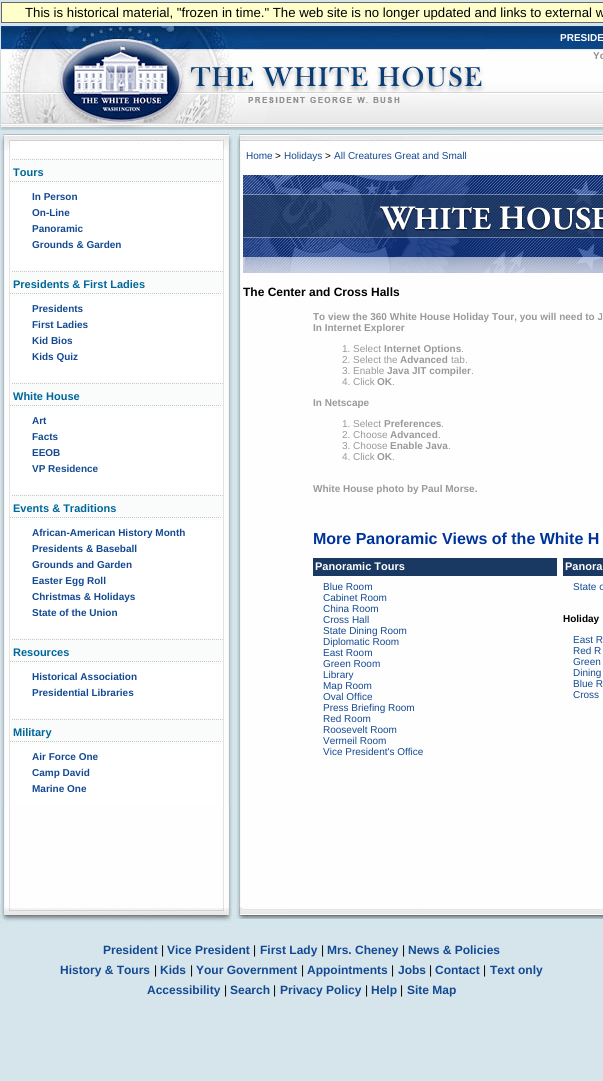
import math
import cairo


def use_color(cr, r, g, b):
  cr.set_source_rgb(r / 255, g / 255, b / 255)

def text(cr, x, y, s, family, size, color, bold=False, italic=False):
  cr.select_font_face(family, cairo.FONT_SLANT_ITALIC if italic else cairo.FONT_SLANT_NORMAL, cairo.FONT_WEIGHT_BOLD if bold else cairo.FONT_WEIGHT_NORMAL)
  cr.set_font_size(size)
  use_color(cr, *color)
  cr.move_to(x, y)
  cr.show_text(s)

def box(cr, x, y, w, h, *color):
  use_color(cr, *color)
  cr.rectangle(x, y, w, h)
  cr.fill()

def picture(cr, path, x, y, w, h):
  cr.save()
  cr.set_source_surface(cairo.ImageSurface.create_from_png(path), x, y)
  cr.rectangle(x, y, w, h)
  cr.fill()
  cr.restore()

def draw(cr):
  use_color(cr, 213, 229, 235)
  cr.paint()
  use_color(cr, 255, 255, 204)
  cr.rectangle(1.5, 2.5, 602, 20)
  cr.fill_preserve()
  use_color(cr, 102, 102, 102)
  cr.set_line_width(1)
  cr.stroke()
  picture(cr, "img_01.png", 485, 26, 118, 104)
  picture(cr, "img_02.png", 0, 26, 485, 104)
  picture(cr, "img_03.png", 1, 130, 602, 775)
  picture(cr, "img_04.png", 237, 130, 366, 20)
  picture(cr, "img_05.png", 2, 150, 229, 656)
  picture(cr, "img_06.png", 0, 130, 233, 20)
  box(cr, 11, 158, 212, 26, 250, 252, 252)
  picture(cr, "img_07.png", 12, 159, 211, 1)
  picture(cr, "img_08.png", 10, 181, 211, 1)
  box(cr, 11, 270, 212, 26, 250, 252, 252)
  picture(cr, "img_07.png", 12, 271, 211, 1)
  picture(cr, "img_08.png", 10, 293, 211, 1)
  box(cr, 11, 382, 212, 26, 250, 252, 252)
  picture(cr, "img_07.png", 12, 383, 211, 1)
  picture(cr, "img_08.png", 10, 405, 211, 1)
  box(cr, 11, 494, 212, 26, 250, 252, 252)
  picture(cr, "img_07.png", 12, 495, 211, 1)
  picture(cr, "img_08.png", 10, 517, 211, 1)
  box(cr, 11, 638, 212, 26, 250, 252, 252)
  picture(cr, "img_07.png", 12, 639, 211, 1)
  picture(cr, "img_08.png", 10, 661, 211, 1)
  box(cr, 11, 718, 212, 26, 250, 252, 252)
  picture(cr, "img_07.png", 12, 719, 211, 1)
  picture(cr, "img_08.png", 10, 741, 211, 1)
  picture(cr, "img_09.png", 243, 175, 360, 98)
  box(cr, 313, 558, 244, 18, 25, 57, 98)
  box(cr, 563, 558, 40, 18, 25, 57, 98)
  picture(cr, "img_10.png", 0, 905, 603, 25)
  text(cr, 25, 17, "This is historical material, \"frozen in time.\" The web site is no longer updated and links to external w", "Liberation Sans", 13.2, (0, 0, 0))
  text(cr, 560, 41, "PRESIDE", "Liberation Sans", 10, (255, 255, 255), bold=True)
  text(cr, 593, 59, "Yo", "Liberation Sans", 10, (145, 144, 144), bold=True)
  text(cr, 13, 176, "Tours", "Liberation Sans", 11, (0, 102, 153), bold=True)
  text(cr, 32, 200, "In Person", "Liberation Sans", 10, (19, 73, 146), bold=True)
  text(cr, 32, 216, "On-Line", "Liberation Sans", 10, (19, 73, 146), bold=True)
  text(cr, 32, 232, "Panoramic", "Liberation Sans", 10, (19, 73, 146), bold=True)
  text(cr, 32, 248, "Grounds & Garden", "Liberation Sans", 10, (19, 73, 146), bold=True)
  text(cr, 13, 288, "Presidents & First Ladies", "Liberation Sans", 11, (0, 102, 153), bold=True)
  text(cr, 32, 312, "Presidents", "Liberation Sans", 10, (19, 73, 146), bold=True)
  text(cr, 32, 328, "First Ladies", "Liberation Sans", 10, (19, 73, 146), bold=True)
  text(cr, 32, 344, "Kid Bios", "Liberation Sans", 10, (19, 73, 146), bold=True)
  text(cr, 32, 360, "Kids Quiz", "Liberation Sans", 10, (19, 73, 146), bold=True)
  text(cr, 13, 400, "White House", "Liberation Sans", 11, (0, 102, 153), bold=True)
  text(cr, 32, 424, "Art", "Liberation Sans", 10, (19, 73, 146), bold=True)
  text(cr, 32, 440, "Facts", "Liberation Sans", 10, (19, 73, 146), bold=True)
  text(cr, 32, 456, "EEOB", "Liberation Sans", 10, (19, 73, 146), bold=True)
  text(cr, 32, 472, "VP Residence", "Liberation Sans", 10, (19, 73, 146), bold=True)
  text(cr, 13, 512, "Events & Traditions", "Liberation Sans", 11, (0, 102, 153), bold=True)
  text(cr, 32, 536, "African-American History Month", "Liberation Sans", 10, (19, 73, 146), bold=True)
  text(cr, 32, 552, "Presidents & Baseball", "Liberation Sans", 10, (19, 73, 146), bold=True)
  text(cr, 32, 568, "Grounds and Garden", "Liberation Sans", 10, (19, 73, 146), bold=True)
  text(cr, 32, 584, "Easter Egg Roll", "Liberation Sans", 10, (19, 73, 146), bold=True)
  text(cr, 32, 600, "Christmas & Holidays", "Liberation Sans", 10, (19, 73, 146), bold=True)
  text(cr, 32, 616, "State of the Union", "Liberation Sans", 10, (19, 73, 146), bold=True)
  text(cr, 13, 656, "Resources", "Liberation Sans", 11, (0, 102, 153), bold=True)
  text(cr, 32, 680, "Historical Association", "Liberation Sans", 10, (19, 73, 146), bold=True)
  text(cr, 32, 696, "Presidential Libraries", "Liberation Sans", 10, (19, 73, 146), bold=True)
  text(cr, 13, 736, "Military", "Liberation Sans", 11, (0, 102, 153), bold=True)
  text(cr, 32, 760, "Air Force One", "Liberation Sans", 10, (19, 73, 146), bold=True)
  text(cr, 32, 776, "Camp David", "Liberation Sans", 10, (19, 73, 146), bold=True)
  text(cr, 32, 792, "Marine One", "Liberation Sans", 10, (19, 73, 146), bold=True)
  text(cr, 246, 159, "Home", "Liberation Sans", 10, (19, 73, 146))
  text(cr, 275, 159, ">", "Liberation Sans", 10, (0, 0, 0))
  text(cr, 284, 159, "Holidays", "Liberation Sans", 10, (19, 73, 146))
  text(cr, 325, 159, ">", "Liberation Sans", 10, (0, 0, 0))
  text(cr, 334, 159, "All Creatures Great and Small", "Liberation Sans", 10, (19, 73, 146))
  text(cr, 243, 296, "The Center and Cross Halls", "Liberation Sans", 12, (0, 0, 0), bold=True)
  text(cr, 313, 320, "To view the 360 White House Holiday Tour, you will need to J", "Liberation Sans", 10, (153, 153, 153), bold=True)
  text(cr, 313, 331, "In Internet Explorer", "Liberation Sans", 10, (153, 153, 153), bold=True)
  text(cr, 342, 352, "1. Select", "Liberation Sans", 10, (153, 153, 153))
  text(cr, 384, 352, "Internet Options", "Liberation Sans", 10, (153, 153, 153), bold=True)
  text(cr, 461, 352, ".", "Liberation Sans", 10, (153, 153, 153))
  text(cr, 342, 363, "2. Select the", "Liberation Sans", 10, (153, 153, 153))
  text(cr, 400, 363, "Advanced", "Liberation Sans", 10, (153, 153, 153), bold=True)
  text(cr, 451, 363, "tab.", "Liberation Sans", 10, (153, 153, 153))
  text(cr, 342, 374, "3. Enable", "Liberation Sans", 10, (153, 153, 153))
  text(cr, 387, 374, "Java JIT compiler", "Liberation Sans", 10, (153, 153, 153), bold=True)
  text(cr, 471, 374, ".", "Liberation Sans", 10, (153, 153, 153))
  text(cr, 342, 385, "4. Click", "Liberation Sans", 10, (153, 153, 153))
  text(cr, 377, 385, "OK", "Liberation Sans", 10, (153, 153, 153), bold=True)
  text(cr, 392, 385, ".", "Liberation Sans", 10, (153, 153, 153))
  text(cr, 313, 406, "In Netscape", "Liberation Sans", 10, (153, 153, 153), bold=True)
  text(cr, 342, 427, "1. Select", "Liberation Sans", 10, (153, 153, 153))
  text(cr, 384, 427, "Preferences", "Liberation Sans", 10, (153, 153, 153), bold=True)
  text(cr, 441, 427, ".", "Liberation Sans", 10, (153, 153, 153))
  text(cr, 342, 438, "2. Choose", "Liberation Sans", 10, (153, 153, 153))
  text(cr, 390, 438, "Advanced", "Liberation Sans", 10, (153, 153, 153), bold=True)
  text(cr, 438, 438, ".", "Liberation Sans", 10, (153, 153, 153))
  text(cr, 342, 449, "3. Choose", "Liberation Sans", 10, (153, 153, 153))
  text(cr, 390, 449, "Enable Java", "Liberation Sans", 10, (153, 153, 153), bold=True)
  text(cr, 448, 449, ".", "Liberation Sans", 10, (153, 153, 153))
  text(cr, 342, 460, "4. Click", "Liberation Sans", 10, (153, 153, 153))
  text(cr, 377, 460, "OK", "Liberation Sans", 10, (153, 153, 153), bold=True)
  text(cr, 392, 460, ".", "Liberation Sans", 10, (153, 153, 153))
  text(cr, 313, 492, "White House photo by Paul Morse.", "Liberation Sans", 10, (153, 153, 153), bold=True)
  text(cr, 313, 544, "More Panoramic Views of the White H", "Liberation Sans", 16, (0, 51, 153), bold=True)
  text(cr, 315, 570, "Panoramic Tours", "Liberation Sans", 11, (255, 255, 255), bold=True)
  text(cr, 323, 590, "Blue Room", "Liberation Sans", 10, (19, 73, 146))
  text(cr, 323, 601, "Cabinet Room", "Liberation Sans", 10, (19, 73, 146))
  text(cr, 323, 612, "China Room", "Liberation Sans", 10, (19, 73, 146))
  text(cr, 323, 623, "Cross Hall", "Liberation Sans", 10, (19, 73, 146))
  text(cr, 323, 634, "State Dining Room", "Liberation Sans", 10, (19, 73, 146))
  text(cr, 323, 645, "Diplomatic Room", "Liberation Sans", 10, (19, 73, 146))
  text(cr, 323, 656, "East Room", "Liberation Sans", 10, (19, 73, 146))
  text(cr, 323, 667, "Green Room", "Liberation Sans", 10, (19, 73, 146))
  text(cr, 323, 678, "Library", "Liberation Sans", 10, (19, 73, 146))
  text(cr, 323, 689, "Map Room", "Liberation Sans", 10, (19, 73, 146))
  text(cr, 323, 700, "Oval Office", "Liberation Sans", 10, (19, 73, 146))
  text(cr, 323, 711, "Press Briefing Room", "Liberation Sans", 10, (19, 73, 146))
  text(cr, 323, 722, "Red Room", "Liberation Sans", 10, (19, 73, 146))
  text(cr, 323, 733, "Roosevelt Room", "Liberation Sans", 10, (19, 73, 146))
  text(cr, 323, 744, "Vermeil Room", "Liberation Sans", 10, (19, 73, 146))
  text(cr, 323, 755, "Vice President's Office", "Liberation Sans", 10, (19, 73, 146))
  text(cr, 565, 570, "Panora", "Liberation Sans", 11, (255, 255, 255), bold=True)
  text(cr, 573, 590, "State o", "Liberation Sans", 10, (19, 73, 146))
  text(cr, 563, 622, "Holiday", "Liberation Sans", 10, (0, 0, 0), bold=True)
  text(cr, 573, 643, "East R", "Liberation Sans", 10, (19, 73, 146))
  text(cr, 573, 654, "Red R", "Liberation Sans", 10, (19, 73, 146))
  text(cr, 573, 665, "Green", "Liberation Sans", 10, (19, 73, 146))
  text(cr, 573, 676, "Dining", "Liberation Sans", 10, (19, 73, 146))
  text(cr, 573, 687, "Blue R", "Liberation Sans", 10, (19, 73, 146))
  text(cr, 573, 698, "Cross", "Liberation Sans", 10, (19, 73, 146))
  text(cr, 103, 954, "President", "Liberation Sans", 12, (19, 73, 146), bold=True)
  text(cr, 161, 954, "|", "Liberation Sans", 12, (0, 0, 0))
  text(cr, 167, 954, "Vice President", "Liberation Sans", 12, (19, 73, 146), bold=True)
  text(cr, 253, 954, "|", "Liberation Sans", 12, (0, 0, 0))
  text(cr, 260, 954, "First Lady", "Liberation Sans", 12, (19, 73, 146), bold=True)
  text(cr, 321, 954, "|", "Liberation Sans", 12, (0, 0, 0))
  text(cr, 327, 954, "Mrs. Cheney", "Liberation Sans", 12, (19, 73, 146), bold=True)
  text(cr, 402, 954, "|", "Liberation Sans", 12, (0, 0, 0))
  text(cr, 408, 954, "News & Policies", "Liberation Sans", 12, (19, 73, 146), bold=True)
  text(cr, 60, 974, "History & Tours", "Liberation Sans", 12, (19, 73, 146), bold=True)
  text(cr, 154, 974, "|", "Liberation Sans", 12, (0, 0, 0))
  text(cr, 160, 974, "Kids", "Liberation Sans", 12, (19, 73, 146), bold=True)
  text(cr, 190, 974, "|", "Liberation Sans", 12, (0, 0, 0))
  text(cr, 196, 974, "Your Government", "Liberation Sans", 12, (19, 73, 146), bold=True)
  text(cr, 301, 974, "|", "Liberation Sans", 12, (0, 0, 0))
  text(cr, 307, 974, "Appointments", "Liberation Sans", 12, (19, 73, 146), bold=True)
  text(cr, 391, 974, "|", "Liberation Sans", 12, (0, 0, 0))
  text(cr, 398, 974, "Jobs", "Liberation Sans", 12, (19, 73, 146), bold=True)
  text(cr, 429, 974, "|", "Liberation Sans", 12, (0, 0, 0))
  text(cr, 435, 974, "Contact", "Liberation Sans", 12, (19, 73, 146), bold=True)
  text(cr, 483, 974, "|", "Liberation Sans", 12, (0, 0, 0))
  text(cr, 490, 974, "Text only", "Liberation Sans", 12, (19, 73, 146), bold=True)
  text(cr, 147, 994, "Accessibility", "Liberation Sans", 12, (19, 73, 146), bold=True)
  text(cr, 224, 994, "|", "Liberation Sans", 12, (0, 0, 0))
  text(cr, 230, 994, "Search", "Liberation Sans", 12, (19, 73, 146), bold=True)
  text(cr, 273, 994, "|", "Liberation Sans", 12, (0, 0, 0))
  text(cr, 280, 994, "Privacy Policy", "Liberation Sans", 12, (19, 73, 146), bold=True)
  text(cr, 365, 994, "|", "Liberation Sans", 12, (0, 0, 0))
  text(cr, 371, 994, "Help", "Liberation Sans", 12, (19, 73, 146), bold=True)
  text(cr, 400, 994, "|", "Liberation Sans", 12, (0, 0, 0))
  text(cr, 407, 994, "Site Map", "Liberation Sans", 12, (19, 73, 146), bold=True)


surface = cairo.ImageSurface(cairo.FORMAT_RGB24, 603, 1081)
cr = cairo.Context(surface)
options = cairo.FontOptions()
options.set_hint_metrics(cairo.HINT_METRICS_OFF)
options.set_hint_style(cairo.HINT_STYLE_NONE)
cr.set_font_options(options)
cr.set_miter_limit(4)
draw(cr)
surface.write_to_png("out.png")
